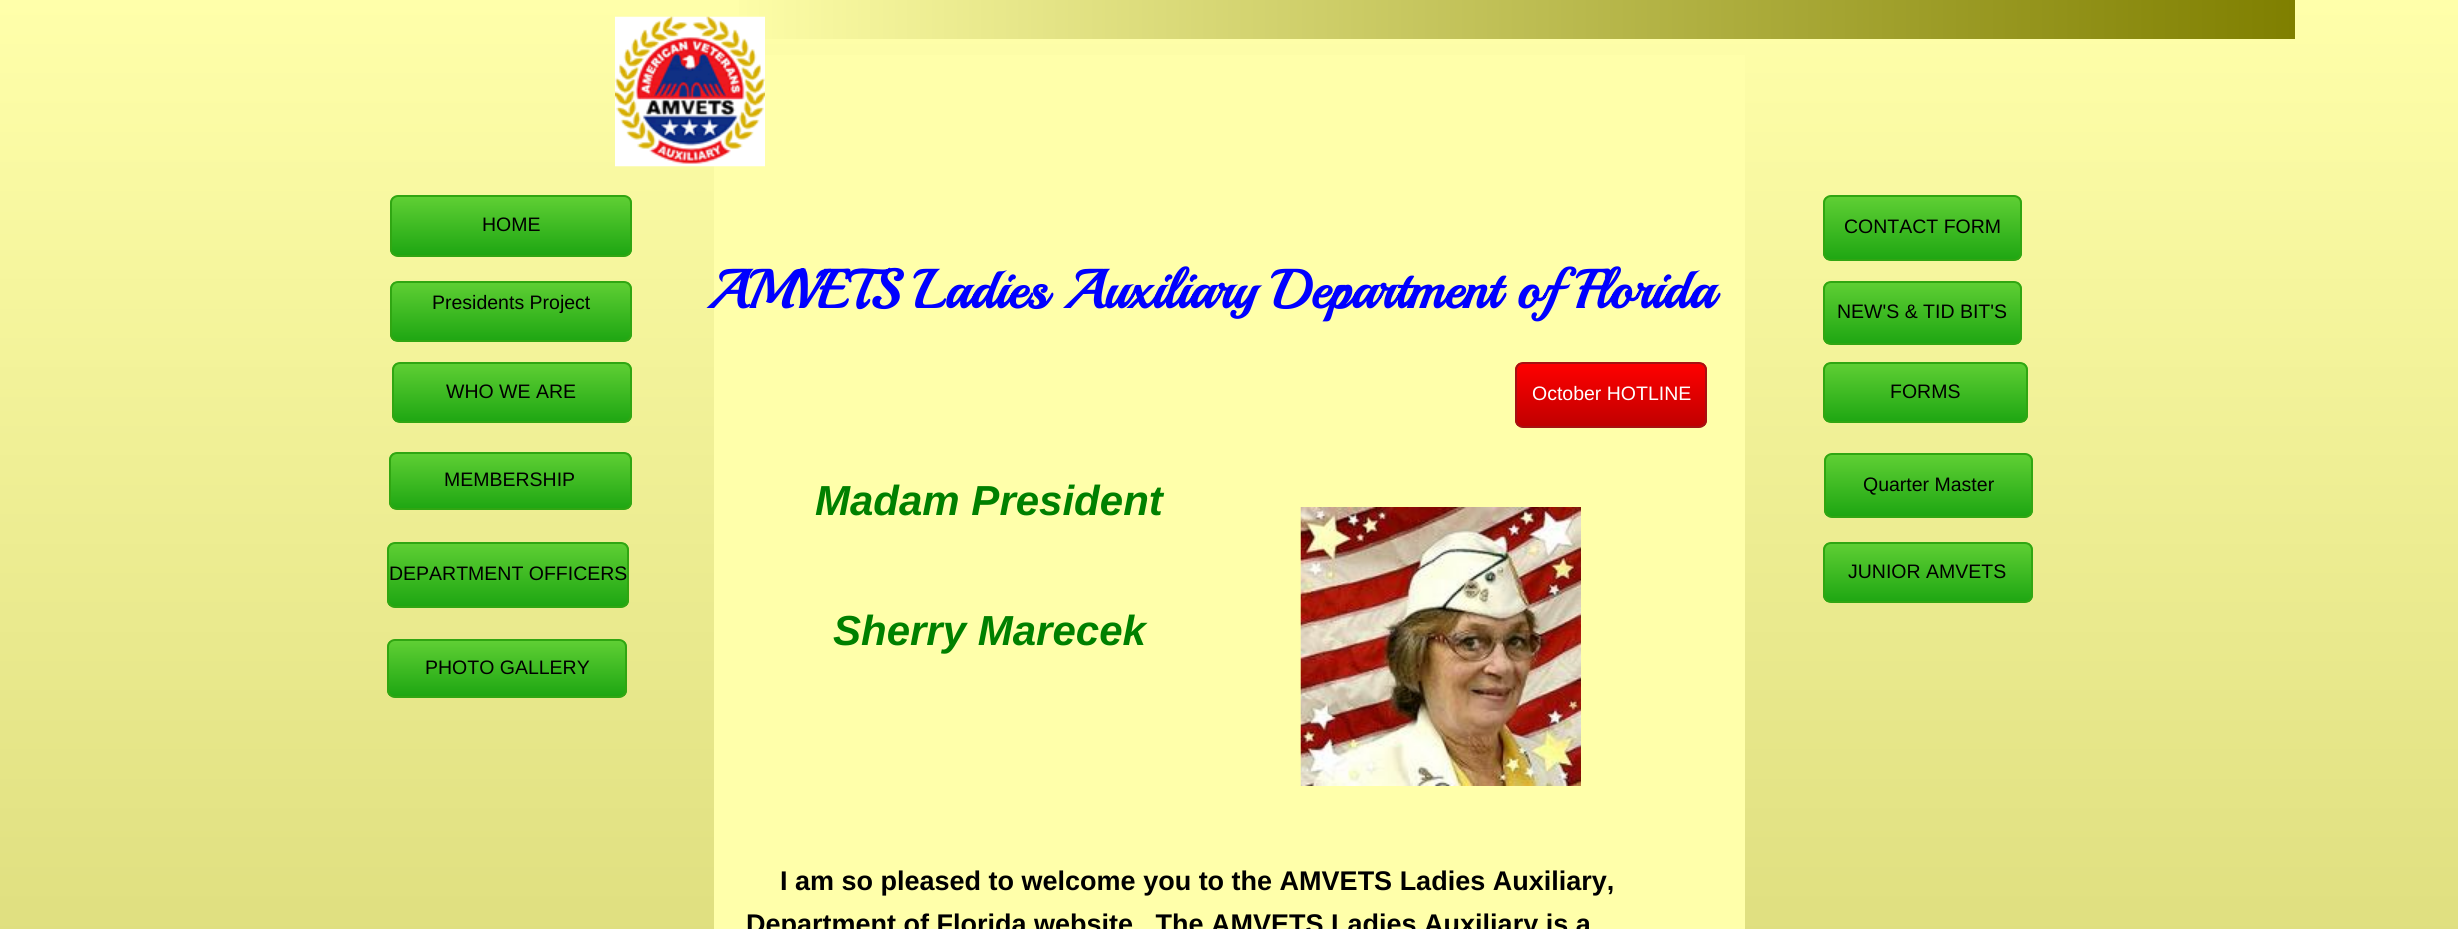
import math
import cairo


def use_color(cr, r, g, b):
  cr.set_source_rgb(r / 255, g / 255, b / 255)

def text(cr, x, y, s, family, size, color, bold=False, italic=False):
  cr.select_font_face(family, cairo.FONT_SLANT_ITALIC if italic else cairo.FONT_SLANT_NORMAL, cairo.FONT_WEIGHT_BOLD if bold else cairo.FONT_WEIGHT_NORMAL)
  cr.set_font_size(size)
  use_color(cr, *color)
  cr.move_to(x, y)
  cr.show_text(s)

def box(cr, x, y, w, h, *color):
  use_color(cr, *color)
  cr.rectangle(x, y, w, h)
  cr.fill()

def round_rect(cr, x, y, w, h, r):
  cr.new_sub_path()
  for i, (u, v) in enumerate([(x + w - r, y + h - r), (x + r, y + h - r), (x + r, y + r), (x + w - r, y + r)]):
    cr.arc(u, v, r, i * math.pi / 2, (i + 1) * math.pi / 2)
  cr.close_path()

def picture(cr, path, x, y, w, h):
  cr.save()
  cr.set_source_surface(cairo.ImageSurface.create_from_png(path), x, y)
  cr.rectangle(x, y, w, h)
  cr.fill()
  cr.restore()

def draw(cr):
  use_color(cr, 255, 255, 255)
  cr.paint()
  gradient = cairo.LinearGradient(1229, 0, 1229, 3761)
  gradient.add_color_stop_rgba(0, 1, 1, 0.667, 1)
  gradient.add_color_stop_rgba(1, 0.498, 0.498, 0, 1)
  cr.set_source(gradient)
  cr.rectangle(0, 0, 2458, 929)
  cr.fill()
  box(cr, 714, 55, 1031, 874, 255, 255, 170)
  gradient = cairo.LinearGradient(716, 20, 2295, 19)
  gradient.add_color_stop_rgba(0, 1, 1, 0.667, 1)
  gradient.add_color_stop_rgba(1, 0.498, 0.498, 0, 1)
  cr.set_source(gradient)
  cr.rectangle(739, 0, 1556, 39)
  cr.fill()
  picture(cr, "img_01.png", 615, 16, 150, 151)
  cr.save()
  round_rect(cr, 390, 195, 242, 62, 8)
  cr.clip()
  gradient = cairo.LinearGradient(511, 197, 511, 255)
  gradient.add_color_stop_rgba(0, 0.373, 0.812, 0.204, 1)
  gradient.add_color_stop_rgba(1, 0.118, 0.651, 0.071, 1)
  cr.set_source(gradient)
  cr.rectangle(390, 197, 242, 58)
  cr.fill()
  cr.restore()
  round_rect(cr, 391, 196, 240, 60, 7)
  use_color(cr, 48, 166, 18)
  cr.stroke()
  cr.save()
  round_rect(cr, 1823, 195, 199, 66, 8)
  cr.clip()
  gradient = cairo.LinearGradient(1922, 197, 1922, 260)
  gradient.add_color_stop_rgba(0, 0.373, 0.812, 0.204, 1)
  gradient.add_color_stop_rgba(1, 0.118, 0.651, 0.071, 1)
  cr.set_source(gradient)
  cr.rectangle(1823, 197, 199, 63)
  cr.fill()
  cr.restore()
  round_rect(cr, 1824, 196, 197, 64, 7)
  cr.stroke()
  cr.save()
  round_rect(cr, 390, 281, 242, 61, 8)
  cr.clip()
  gradient = cairo.LinearGradient(511, 282, 511, 341)
  gradient.add_color_stop_rgba(0, 0.373, 0.812, 0.204, 1)
  gradient.add_color_stop_rgba(1, 0.118, 0.651, 0.071, 1)
  cr.set_source(gradient)
  cr.rectangle(390, 282, 242, 59)
  cr.fill()
  cr.restore()
  round_rect(cr, 391, 282, 240, 59, 7)
  cr.stroke()
  cr.save()
  round_rect(cr, 1823, 281, 199, 64, 8)
  cr.clip()
  gradient = cairo.LinearGradient(1922, 282, 1922, 344)
  gradient.add_color_stop_rgba(0, 0.373, 0.812, 0.204, 1)
  gradient.add_color_stop_rgba(1, 0.118, 0.651, 0.071, 1)
  cr.set_source(gradient)
  cr.rectangle(1823, 282, 199, 62)
  cr.fill()
  cr.restore()
  round_rect(cr, 1824, 282, 197, 62, 7)
  cr.stroke()
  cr.save()
  round_rect(cr, 392, 362, 240, 61, 8)
  cr.clip()
  gradient = cairo.LinearGradient(512, 363, 512, 422)
  gradient.add_color_stop_rgba(0, 0.373, 0.812, 0.204, 1)
  gradient.add_color_stop_rgba(1, 0.118, 0.651, 0.071, 1)
  cr.set_source(gradient)
  cr.rectangle(392, 363, 240, 59)
  cr.fill()
  cr.restore()
  round_rect(cr, 393, 363, 238, 59, 7)
  cr.stroke()
  cr.save()
  round_rect(cr, 1515, 362, 192, 66, 8)
  cr.clip()
  gradient = cairo.LinearGradient(1611, 363, 1611, 426)
  gradient.add_color_stop_rgba(0, 1, 0, 0, 1)
  gradient.add_color_stop_rgba(1, 0.753, 0, 0, 1)
  cr.set_source(gradient)
  cr.rectangle(1515, 363, 192, 63)
  cr.fill()
  cr.restore()
  round_rect(cr, 1516, 363, 190, 64, 7)
  use_color(cr, 166, 18, 18)
  cr.stroke()
  cr.save()
  round_rect(cr, 1823, 362, 205, 61, 8)
  cr.clip()
  gradient = cairo.LinearGradient(1925, 363, 1925, 422)
  gradient.add_color_stop_rgba(0, 0.373, 0.812, 0.204, 1)
  gradient.add_color_stop_rgba(1, 0.118, 0.651, 0.071, 1)
  cr.set_source(gradient)
  cr.rectangle(1823, 363, 205, 59)
  cr.fill()
  cr.restore()
  round_rect(cr, 1824, 363, 203, 59, 7)
  use_color(cr, 48, 166, 18)
  cr.stroke()
  cr.save()
  round_rect(cr, 389, 452, 243, 58, 8)
  cr.clip()
  gradient = cairo.LinearGradient(510, 453, 510, 509)
  gradient.add_color_stop_rgba(0, 0.373, 0.812, 0.204, 1)
  gradient.add_color_stop_rgba(1, 0.118, 0.651, 0.071, 1)
  cr.set_source(gradient)
  cr.rectangle(389, 453, 243, 56)
  cr.fill()
  cr.restore()
  round_rect(cr, 390, 453, 241, 56, 7)
  cr.stroke()
  picture(cr, "img_02.png", 1300, 507, 281, 279)
  cr.save()
  round_rect(cr, 1824, 453, 209, 65, 8)
  cr.clip()
  gradient = cairo.LinearGradient(1928, 455, 1928, 516)
  gradient.add_color_stop_rgba(0, 0.373, 0.812, 0.204, 1)
  gradient.add_color_stop_rgba(1, 0.118, 0.651, 0.071, 1)
  cr.set_source(gradient)
  cr.rectangle(1824, 455, 209, 61)
  cr.fill()
  cr.restore()
  round_rect(cr, 1825, 454, 207, 63, 7)
  cr.stroke()
  cr.save()
  round_rect(cr, 387, 542, 242, 66, 8)
  cr.clip()
  gradient = cairo.LinearGradient(508, 543, 508, 606)
  gradient.add_color_stop_rgba(0, 0.373, 0.812, 0.204, 1)
  gradient.add_color_stop_rgba(1, 0.118, 0.651, 0.071, 1)
  cr.set_source(gradient)
  cr.rectangle(387, 543, 242, 63)
  cr.fill()
  cr.restore()
  round_rect(cr, 388, 543, 240, 64, 7)
  cr.stroke()
  cr.save()
  round_rect(cr, 1823, 542, 210, 61, 8)
  cr.clip()
  gradient = cairo.LinearGradient(1928, 543, 1928, 602)
  gradient.add_color_stop_rgba(0, 0.373, 0.812, 0.204, 1)
  gradient.add_color_stop_rgba(1, 0.118, 0.651, 0.071, 1)
  cr.set_source(gradient)
  cr.rectangle(1823, 543, 210, 59)
  cr.fill()
  cr.restore()
  round_rect(cr, 1824, 543, 208, 59, 7)
  cr.stroke()
  cr.save()
  round_rect(cr, 387, 639, 240, 59, 8)
  cr.clip()
  gradient = cairo.LinearGradient(507, 641, 507, 696)
  gradient.add_color_stop_rgba(0, 0.373, 0.812, 0.204, 1)
  gradient.add_color_stop_rgba(1, 0.118, 0.651, 0.071, 1)
  cr.set_source(gradient)
  cr.rectangle(387, 641, 240, 55)
  cr.fill()
  cr.restore()
  round_rect(cr, 388, 640, 238, 57, 7)
  cr.stroke()
  text(cr, 482, 231, "HOME", "Liberation Sans", 19.5, (0, 0, 0))
  text(cr, 1844, 233, "CONTACT FORM", "Liberation Sans", 19.5, (0, 0, 0))
  text(cr, 432, 309, "Presidents Project", "Liberation Sans", 19.5, (0, 0, 0))
  text(cr, 707, 308, "AMVETS Ladies Auxiliary Department of Florida", "Playball", 54, (0, 0, 255), bold=True)
  text(cr, 1837, 318, "NEW'S & TID BIT'S", "Liberation Sans", 19.5, (0, 0, 0))
  text(cr, 446, 398, "WHO WE ARE", "Liberation Sans", 19.5, (0, 0, 0))
  text(cr, 1532, 400, "October HOTLINE", "Liberation Sans", 19.5, (255, 255, 255))
  text(cr, 1890, 398, "FORMS", "Liberation Sans", 19.5, (0, 0, 0))
  text(cr, 444, 486, "MEMBERSHIP", "Liberation Sans", 19.5, (0, 0, 0))
  text(cr, 815, 515, "Madam President", "Liberation Sans", 42, (0, 128, 0), bold=True, italic=True)
  text(cr, 833, 645, "Sherry Marecek", "Liberation Sans", 42, (0, 128, 0), bold=True, italic=True)
  text(cr, 1863, 491, "Quarter Master", "Liberation Sans", 19.5, (0, 0, 0))
  text(cr, 389, 580, "DEPARTMENT OFFICERS", "Liberation Sans", 19.5, (0, 0, 0))
  text(cr, 1848, 578, "JUNIOR AMVETS", "Liberation Sans", 19.5, (0, 0, 0))
  text(cr, 425, 674, "PHOTO GALLERY", "Liberation Sans", 19.5, (0, 0, 0))
  text(cr, 780, 890, "I am so pleased to welcome you to the AMVETS Ladies Auxiliary,", "Liberation Sans", 27, (0, 0, 0), bold=True)
  text(cr, 746, 933, "Department of Florida website.  The AMVETS Ladies Auxiliary is a", "Liberation Sans", 27, (0, 0, 0), bold=True)


surface = cairo.ImageSurface(cairo.FORMAT_RGB24, 2458, 929)
cr = cairo.Context(surface)
options = cairo.FontOptions()
options.set_hint_metrics(cairo.HINT_METRICS_OFF)
options.set_hint_style(cairo.HINT_STYLE_NONE)
cr.set_font_options(options)
cr.set_miter_limit(4)
draw(cr)
surface.write_to_png("out.png")
